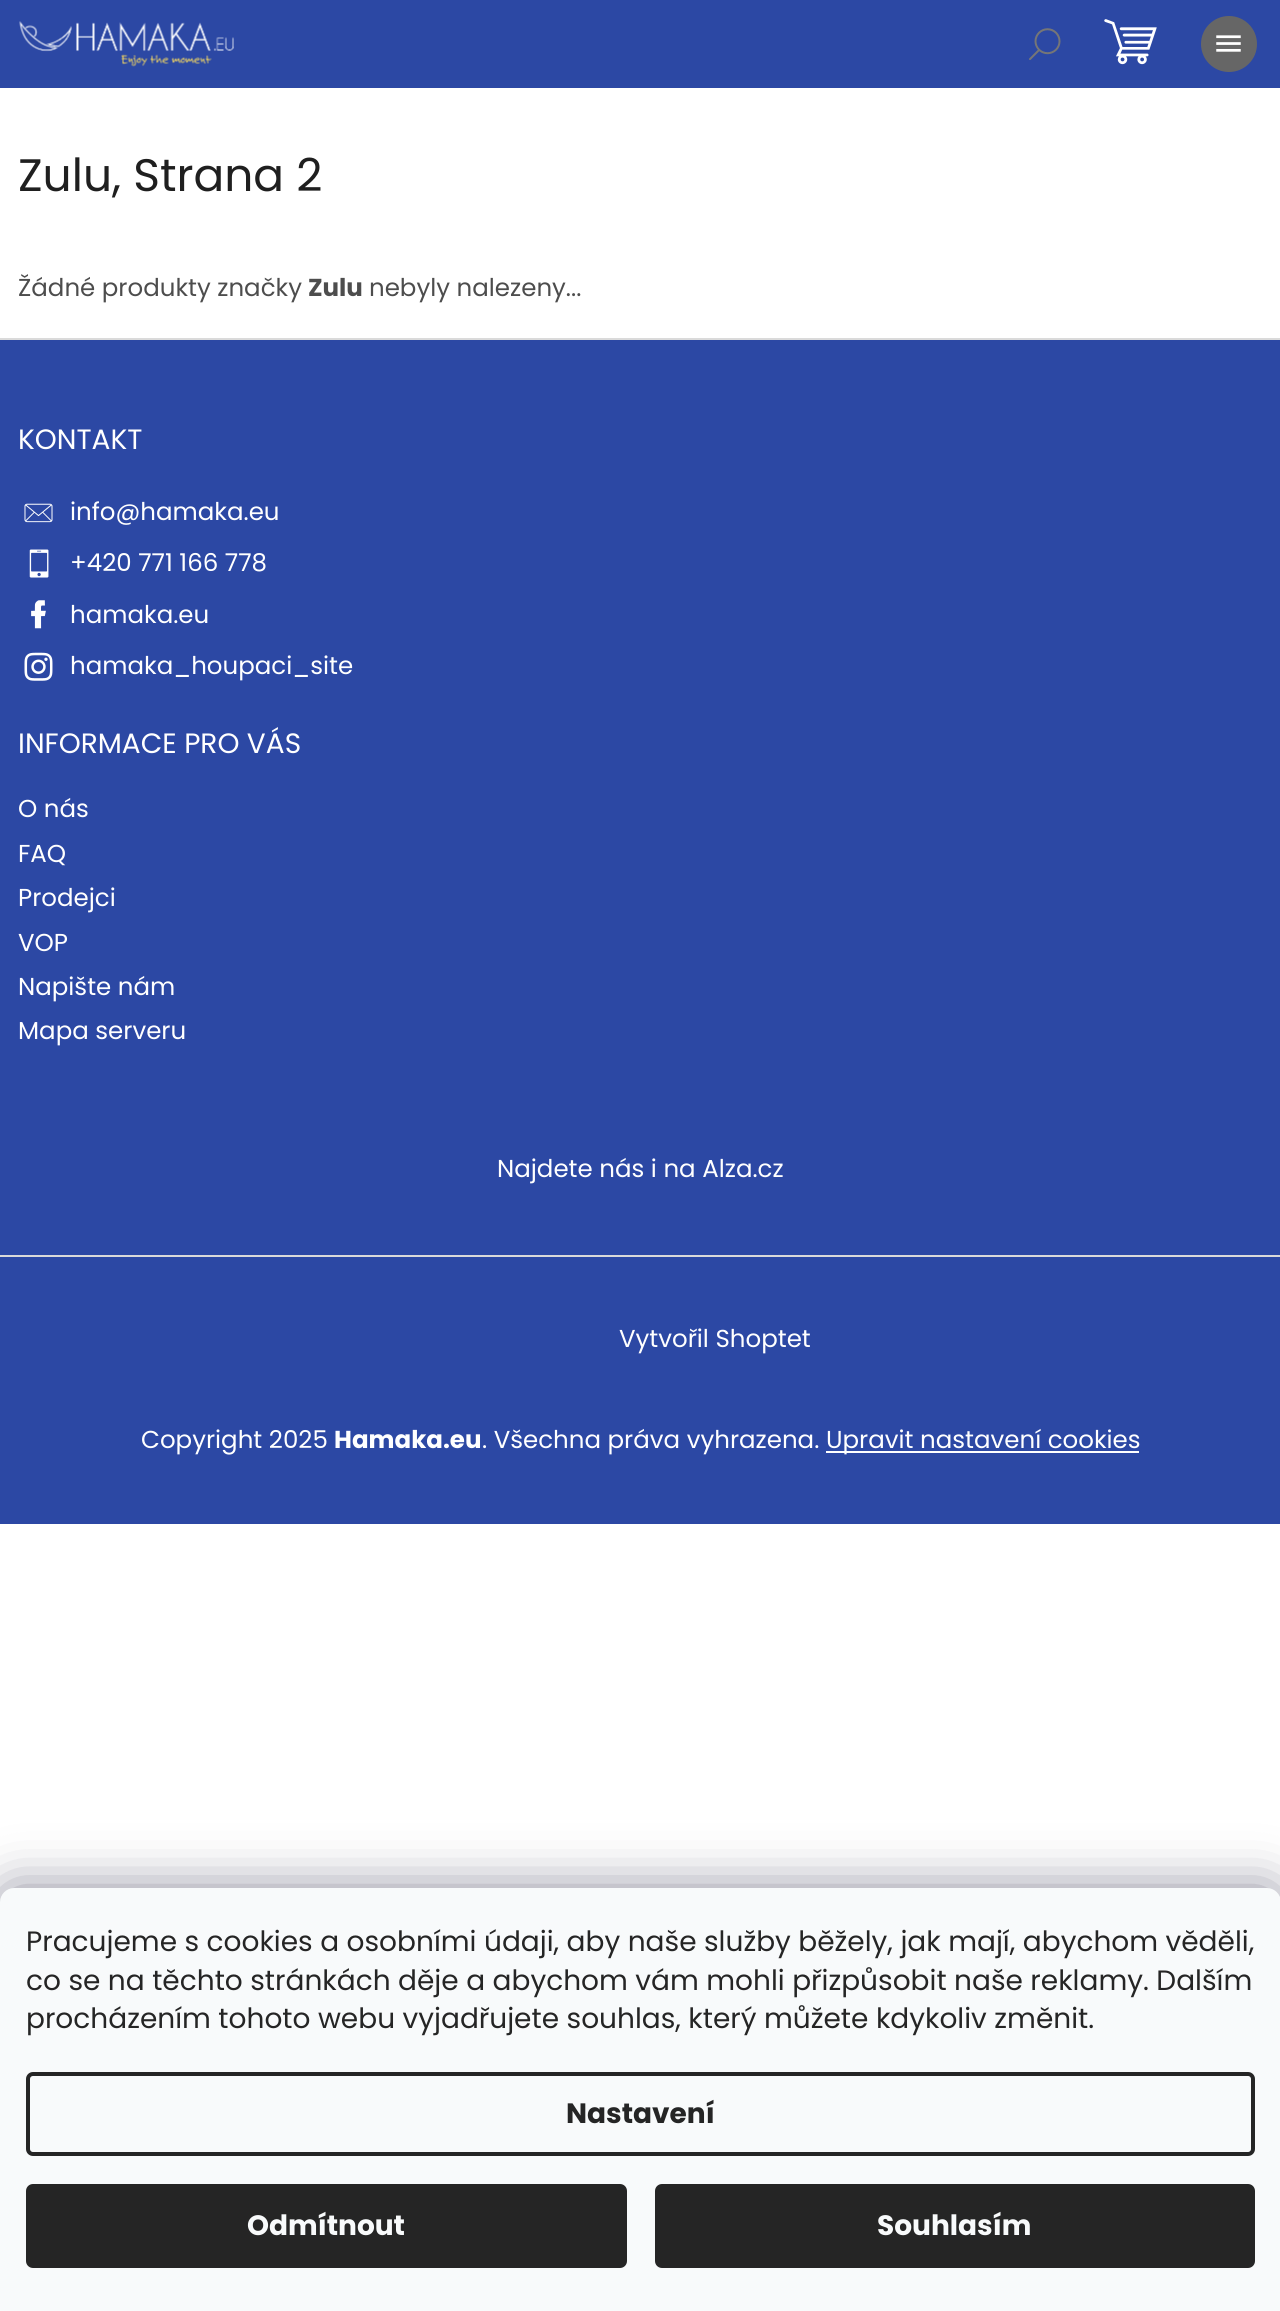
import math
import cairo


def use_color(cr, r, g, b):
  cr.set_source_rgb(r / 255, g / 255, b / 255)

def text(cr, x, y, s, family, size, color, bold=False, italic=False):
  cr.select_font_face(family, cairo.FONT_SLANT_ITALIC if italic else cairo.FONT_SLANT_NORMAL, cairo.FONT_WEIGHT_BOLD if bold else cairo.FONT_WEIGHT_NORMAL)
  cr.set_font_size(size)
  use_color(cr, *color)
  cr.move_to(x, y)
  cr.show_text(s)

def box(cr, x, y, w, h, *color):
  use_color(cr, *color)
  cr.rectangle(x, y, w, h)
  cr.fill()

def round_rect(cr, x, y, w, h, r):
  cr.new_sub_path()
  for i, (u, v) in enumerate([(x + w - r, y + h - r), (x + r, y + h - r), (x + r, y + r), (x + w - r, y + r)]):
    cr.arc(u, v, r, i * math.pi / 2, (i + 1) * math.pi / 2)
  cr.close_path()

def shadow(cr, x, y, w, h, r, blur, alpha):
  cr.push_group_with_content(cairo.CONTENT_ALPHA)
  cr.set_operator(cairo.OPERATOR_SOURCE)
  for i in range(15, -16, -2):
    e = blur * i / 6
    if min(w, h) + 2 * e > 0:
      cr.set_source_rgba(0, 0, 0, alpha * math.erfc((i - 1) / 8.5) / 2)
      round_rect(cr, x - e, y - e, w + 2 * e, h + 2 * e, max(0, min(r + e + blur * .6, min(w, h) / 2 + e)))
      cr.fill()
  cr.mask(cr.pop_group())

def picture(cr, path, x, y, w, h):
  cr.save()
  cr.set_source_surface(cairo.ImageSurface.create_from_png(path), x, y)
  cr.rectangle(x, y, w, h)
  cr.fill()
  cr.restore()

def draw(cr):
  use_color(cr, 255, 255, 255)
  cr.paint()
  box(cr, 0, 0, 1280, 88, 44, 72, 164)
  picture(cr, "img_01.png", 1029, 28, 32, 32)
  use_color(cr, 102, 102, 102)
  cr.arc(1229, 44, 28, 0, 2 * math.pi)
  cr.fill()
  picture(cr, "img_02.png", 1216, 35, 25, 17)
  picture(cr, "img_03.png", 19, 21, 215, 46)
  picture(cr, "img_04.png", 1104, 19, 53, 46)
  box(cr, 0, 340, 1280, 1184, 44, 72, 164)
  box(cr, 0, 338, 1280, 2, 218, 218, 218)
  picture(cr, "img_05.png", 24, 503, 29, 20)
  picture(cr, "img_06.png", 29, 549, 20, 29)
  picture(cr, "img_07.png", 31, 600, 15, 29)
  picture(cr, "img_08.png", 24, 652, 29, 29)
  box(cr, 0, 1255, 1280, 2, 218, 218, 218)
  box(cr, 826, 1451, 313, 2, 255, 255, 255)
  use_color(cr, 27, 25, 57)
  shadow(cr, 0, 1888, 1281, 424, 14, 26, 0.5)
  use_color(cr, 248, 250, 251)
  cr.new_path()
  cr.move_to(14, 1888)
  cr.line_to(1267, 1888)
  cr.curve_to(1274.5, 1888, 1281, 1894.5, 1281, 1902)
  cr.line_to(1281, 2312)
  cr.line_to(0, 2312)
  cr.line_to(0, 1902)
  cr.curve_to(0, 1894.5, 6.5, 1888, 14, 1888)
  cr.close_path()
  cr.fill()
  round_rect(cr, 28, 2074, 1225, 80, 5)
  use_color(cr, 37, 37, 37)
  cr.set_line_width(4)
  cr.stroke()
  round_rect(cr, 26, 2184, 601, 84, 7)
  cr.fill()
  round_rect(cr, 655, 2184, 600, 84, 7)
  cr.fill()
  text(cr, 18, 191, "Zulu, Strana 2", "Poppins", 45.5, (31, 31, 31))
  text(cr, 18, 296, "Žádné produkty značky", "Poppins", 24.5, (77, 77, 77))
  text(cr, 308, 296, "Zulu", "Poppins", 24.5, (77, 77, 77), bold=True)
  text(cr, 369, 296, "nebyly nalezeny...", "Poppins", 24.5, (77, 77, 77))
  text(cr, 18, 449, "KONTAKT", "Poppins", 28, (255, 255, 255))
  text(cr, 70, 520, "info@hamaka.eu", "Poppins", 24.5, (255, 255, 255))
  text(cr, 70, 571, "+420 771 166 778", "Poppins", 24.5, (255, 255, 255))
  text(cr, 70, 623, "hamaka.eu", "Poppins", 24.5, (255, 255, 255))
  text(cr, 70, 674, "hamaka_houpaci_site", "Poppins", 24.5, (255, 255, 255))
  text(cr, 18, 753, "INFORMACE PRO VÁS", "Poppins", 28, (255, 255, 255))
  text(cr, 18, 817, "O nás", "Poppins", 24.5, (255, 255, 255))
  text(cr, 18, 862, "FAQ", "Poppins", 24.5, (255, 255, 255))
  text(cr, 18, 906, "Prodejci", "Poppins", 24.5, (255, 255, 255))
  text(cr, 18, 951, "VOP", "Poppins", 24.5, (255, 255, 255))
  text(cr, 18, 995, "Napište nám", "Poppins", 24.5, (255, 255, 255))
  text(cr, 18, 1039, "Mapa serveru", "Poppins", 24.5, (255, 255, 255))
  text(cr, 497, 1177, "Najdete nás i na Alza.cz", "Poppins", 24.5, (255, 255, 255))
  text(cr, 619, 1347, "Vytvořil Shoptet", "Poppins", 24.5, (255, 255, 255))
  text(cr, 141, 1448, "Copyright 2025", "Poppins", 24.5, (255, 255, 255))
  text(cr, 334, 1448, "Hamaka.eu", "Poppins", 24.5, (255, 255, 255), bold=True)
  text(cr, 482, 1448, ". Všechna práva vyhrazena.", "Poppins", 24.5, (255, 255, 255))
  text(cr, 826, 1448, "Upravit nastavení cookies", "Poppins", 24.5, (255, 255, 255))
  text(cr, 26, 1951, "Pracujeme s cookies a osobními údaji, aby naše služby běžely, jak mají, abychom věděli,", "Poppins", 28, (37, 37, 37))
  text(cr, 26, 1990, "co se na těchto stránkách děje a abychom vám mohli přizpůsobit naše reklamy. Dalším", "Poppins", 28, (37, 37, 37))
  text(cr, 26, 2028, "procházením tohoto webu vyjadřujete souhlas, který můžete kdykoliv změnit.", "Poppins", 28, (37, 37, 37))
  text(cr, 566, 2123, "Nastavení", "Poppins", 28, (37, 37, 37), bold=True)
  text(cr, 247, 2235, "Odmítnout", "Poppins", 28, (248, 250, 251), bold=True)
  text(cr, 877, 2235, "Souhlasím", "Poppins", 28, (248, 250, 251), bold=True)


surface = cairo.ImageSurface(cairo.FORMAT_RGB24, 1280, 2311)
cr = cairo.Context(surface)
options = cairo.FontOptions()
options.set_hint_metrics(cairo.HINT_METRICS_OFF)
options.set_hint_style(cairo.HINT_STYLE_NONE)
cr.set_font_options(options)
cr.set_miter_limit(4)
draw(cr)
surface.write_to_png("out.png")
